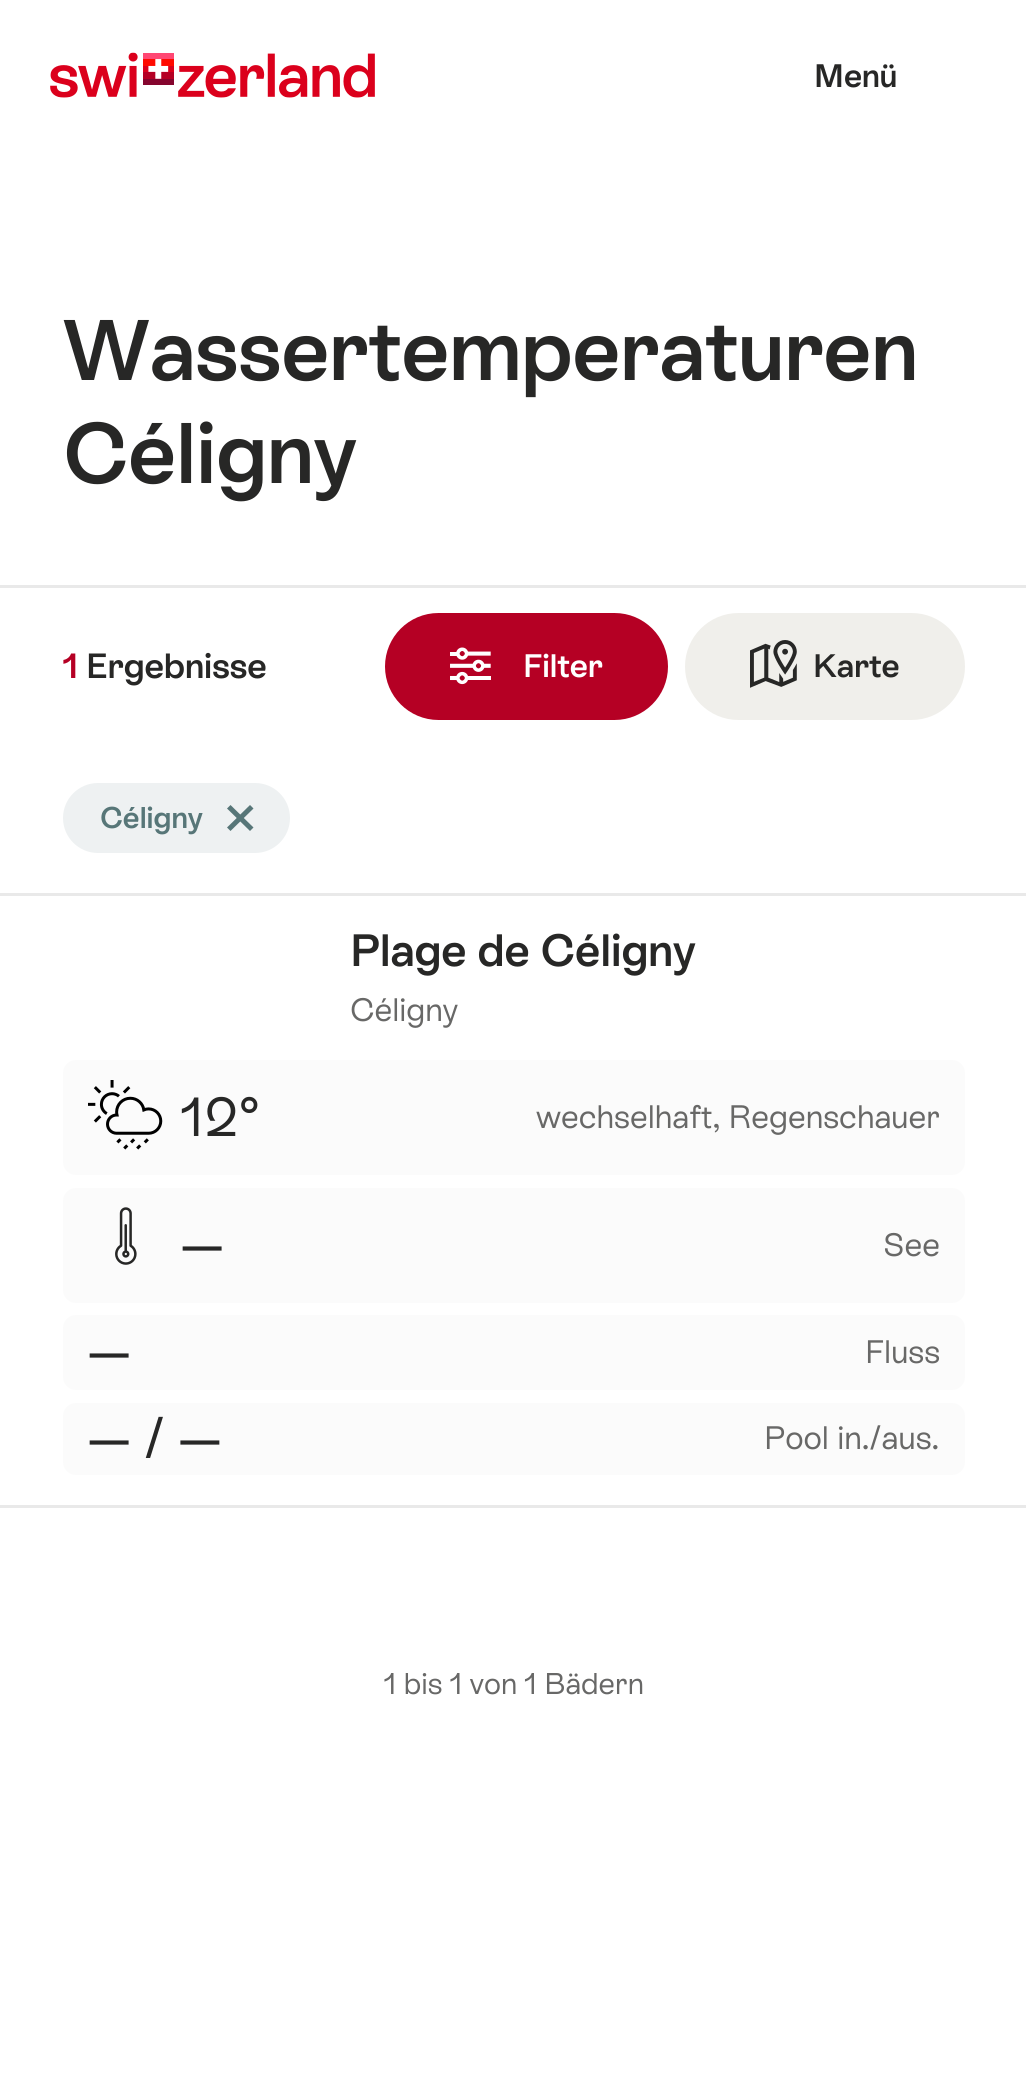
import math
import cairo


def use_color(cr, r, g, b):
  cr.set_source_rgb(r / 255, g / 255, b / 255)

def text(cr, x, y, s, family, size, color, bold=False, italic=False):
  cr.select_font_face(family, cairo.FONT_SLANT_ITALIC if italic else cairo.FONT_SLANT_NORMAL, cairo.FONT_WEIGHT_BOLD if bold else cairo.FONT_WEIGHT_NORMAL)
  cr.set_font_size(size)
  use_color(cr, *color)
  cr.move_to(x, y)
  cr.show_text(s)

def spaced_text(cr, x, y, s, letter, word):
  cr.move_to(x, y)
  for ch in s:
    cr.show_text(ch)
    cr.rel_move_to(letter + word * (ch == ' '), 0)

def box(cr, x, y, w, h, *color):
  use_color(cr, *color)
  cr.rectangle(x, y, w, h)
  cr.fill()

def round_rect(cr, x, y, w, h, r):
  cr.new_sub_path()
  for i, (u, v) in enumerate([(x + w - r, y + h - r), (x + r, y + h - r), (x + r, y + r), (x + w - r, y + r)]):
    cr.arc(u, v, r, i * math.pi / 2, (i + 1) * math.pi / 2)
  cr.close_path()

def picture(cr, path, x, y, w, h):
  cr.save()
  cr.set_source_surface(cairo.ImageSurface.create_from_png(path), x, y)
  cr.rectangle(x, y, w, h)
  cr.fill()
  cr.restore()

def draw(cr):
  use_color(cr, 255, 255, 255)
  cr.paint()
  picture(cr, "img_01.png", 50, 52, 325, 46)
  box(cr, 0, 585, 1026, 3, 233, 233, 233)
  use_color(cr, 181, 0, 36)
  round_rect(cr, 385, 613, 283, 107, 53.5)
  cr.fill()
  picture(cr, "img_02.png", 450, 647, 41, 38)
  use_color(cr, 240, 239, 235)
  round_rect(cr, 685, 613, 280, 107, 53.5)
  cr.fill()
  picture(cr, "img_03.png", 750, 640, 47, 48)
  use_color(cr, 238, 241, 242)
  round_rect(cr, 63, 783, 227, 70, 35)
  cr.fill()
  use_color(cr, 87, 118, 120)
  cr.new_path()
  cr.move_to(230.5, 805)
  cr.line_to(253.5, 827.5)
  cr.line_to(250, 831)
  cr.line_to(227, 808.5)
  cr.close_path()
  cr.fill()
  cr.new_path()
  cr.move_to(227, 827.5)
  cr.line_to(250, 805)
  cr.line_to(253.5, 808.5)
  cr.line_to(230.5, 831)
  cr.close_path()
  cr.fill()
  box(cr, 0, 893, 1026, 3, 233, 233, 233)
  box(cr, 0, 1505, 1026, 3, 233, 233, 233)
  use_color(cr, 251, 251, 251)
  round_rect(cr, 63, 1060, 902, 115, 13)
  cr.fill()
  picture(cr, "img_04.png", 88, 1080, 75, 70)
  round_rect(cr, 63, 1188, 902, 115, 13)
  cr.fill()
  picture(cr, "img_05.png", 115, 1207, 22, 58)
  round_rect(cr, 63, 1315, 902, 75, 13)
  cr.fill()
  round_rect(cr, 63, 1403, 902, 72, 13)
  cr.fill()
  text(cr, 814, 87, "Menü", "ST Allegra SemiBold", 32.5, (39, 39, 38))
  text(cr, 63, 380, "Wassertemperaturen", "ST Allegra SemiBold", 85.75, (39, 39, 38))
  text(cr, 63, 483, "Céligny", "ST Allegra SemiBold", 85.75, (39, 39, 38))
  text(cr, 63, 678, "1", "ST Allegra SemiBold", 35, (181, 0, 36))
  text(cr, 86, 678, "Ergebnisse", "ST Allegra SemiBold", 35, (39, 39, 38))
  text(cr, 523, 677, "Filter", "ST Allegra SemiBold", 32.5, (255, 255, 255))
  text(cr, 813, 677, "Karte", "ST Allegra SemiBold", 32.5, (39, 39, 38))
  text(cr, 100, 828, "Céligny", "ST Allegra SemiBold", 30, (87, 118, 120))
  text(cr, 350, 966, "Plage de Céligny", "ST Allegra SemiBold", 45.25, (39, 39, 38))
  text(cr, 350, 1021, "Céligny", "ST Allegra", 32.5, (104, 104, 103))
  cr.set_font_size(55)
  use_color(cr, 39, 39, 38)
  spaced_text(cr, 181, 1136, "12°", 1, 0)
  text(cr, 536, 1128, "wechselhaft, Regenschauer", "ST Allegra", 32.5, (104, 104, 103))
  cr.set_font_size(55)
  use_color(cr, 39, 39, 38)
  spaced_text(cr, 181, 1263, "—", 1, 0)
  text(cr, 883, 1256, "See", "ST Allegra", 32.5, (104, 104, 103))
  cr.set_font_size(55)
  use_color(cr, 39, 39, 38)
  spaced_text(cr, 88, 1370, "—", 1, 0)
  text(cr, 865, 1363, "Fluss", "ST Allegra", 32.5, (104, 104, 103))
  cr.set_font_size(55)
  use_color(cr, 39, 39, 38)
  spaced_text(cr, 88, 1457, "— / —", 1, -2)
  text(cr, 764, 1449, "Pool in./aus.", "ST Allegra", 32.5, (104, 104, 103))
  text(cr, 384, 1694, "1 bis 1 von 1 Bädern", "ST Allegra", 30, (104, 104, 103))


surface = cairo.ImageSurface(cairo.FORMAT_RGB24, 1026, 2078)
cr = cairo.Context(surface)
options = cairo.FontOptions()
options.set_hint_metrics(cairo.HINT_METRICS_OFF)
options.set_hint_style(cairo.HINT_STYLE_NONE)
cr.set_font_options(options)
cr.set_miter_limit(4)
draw(cr)
surface.write_to_png("out.png")
